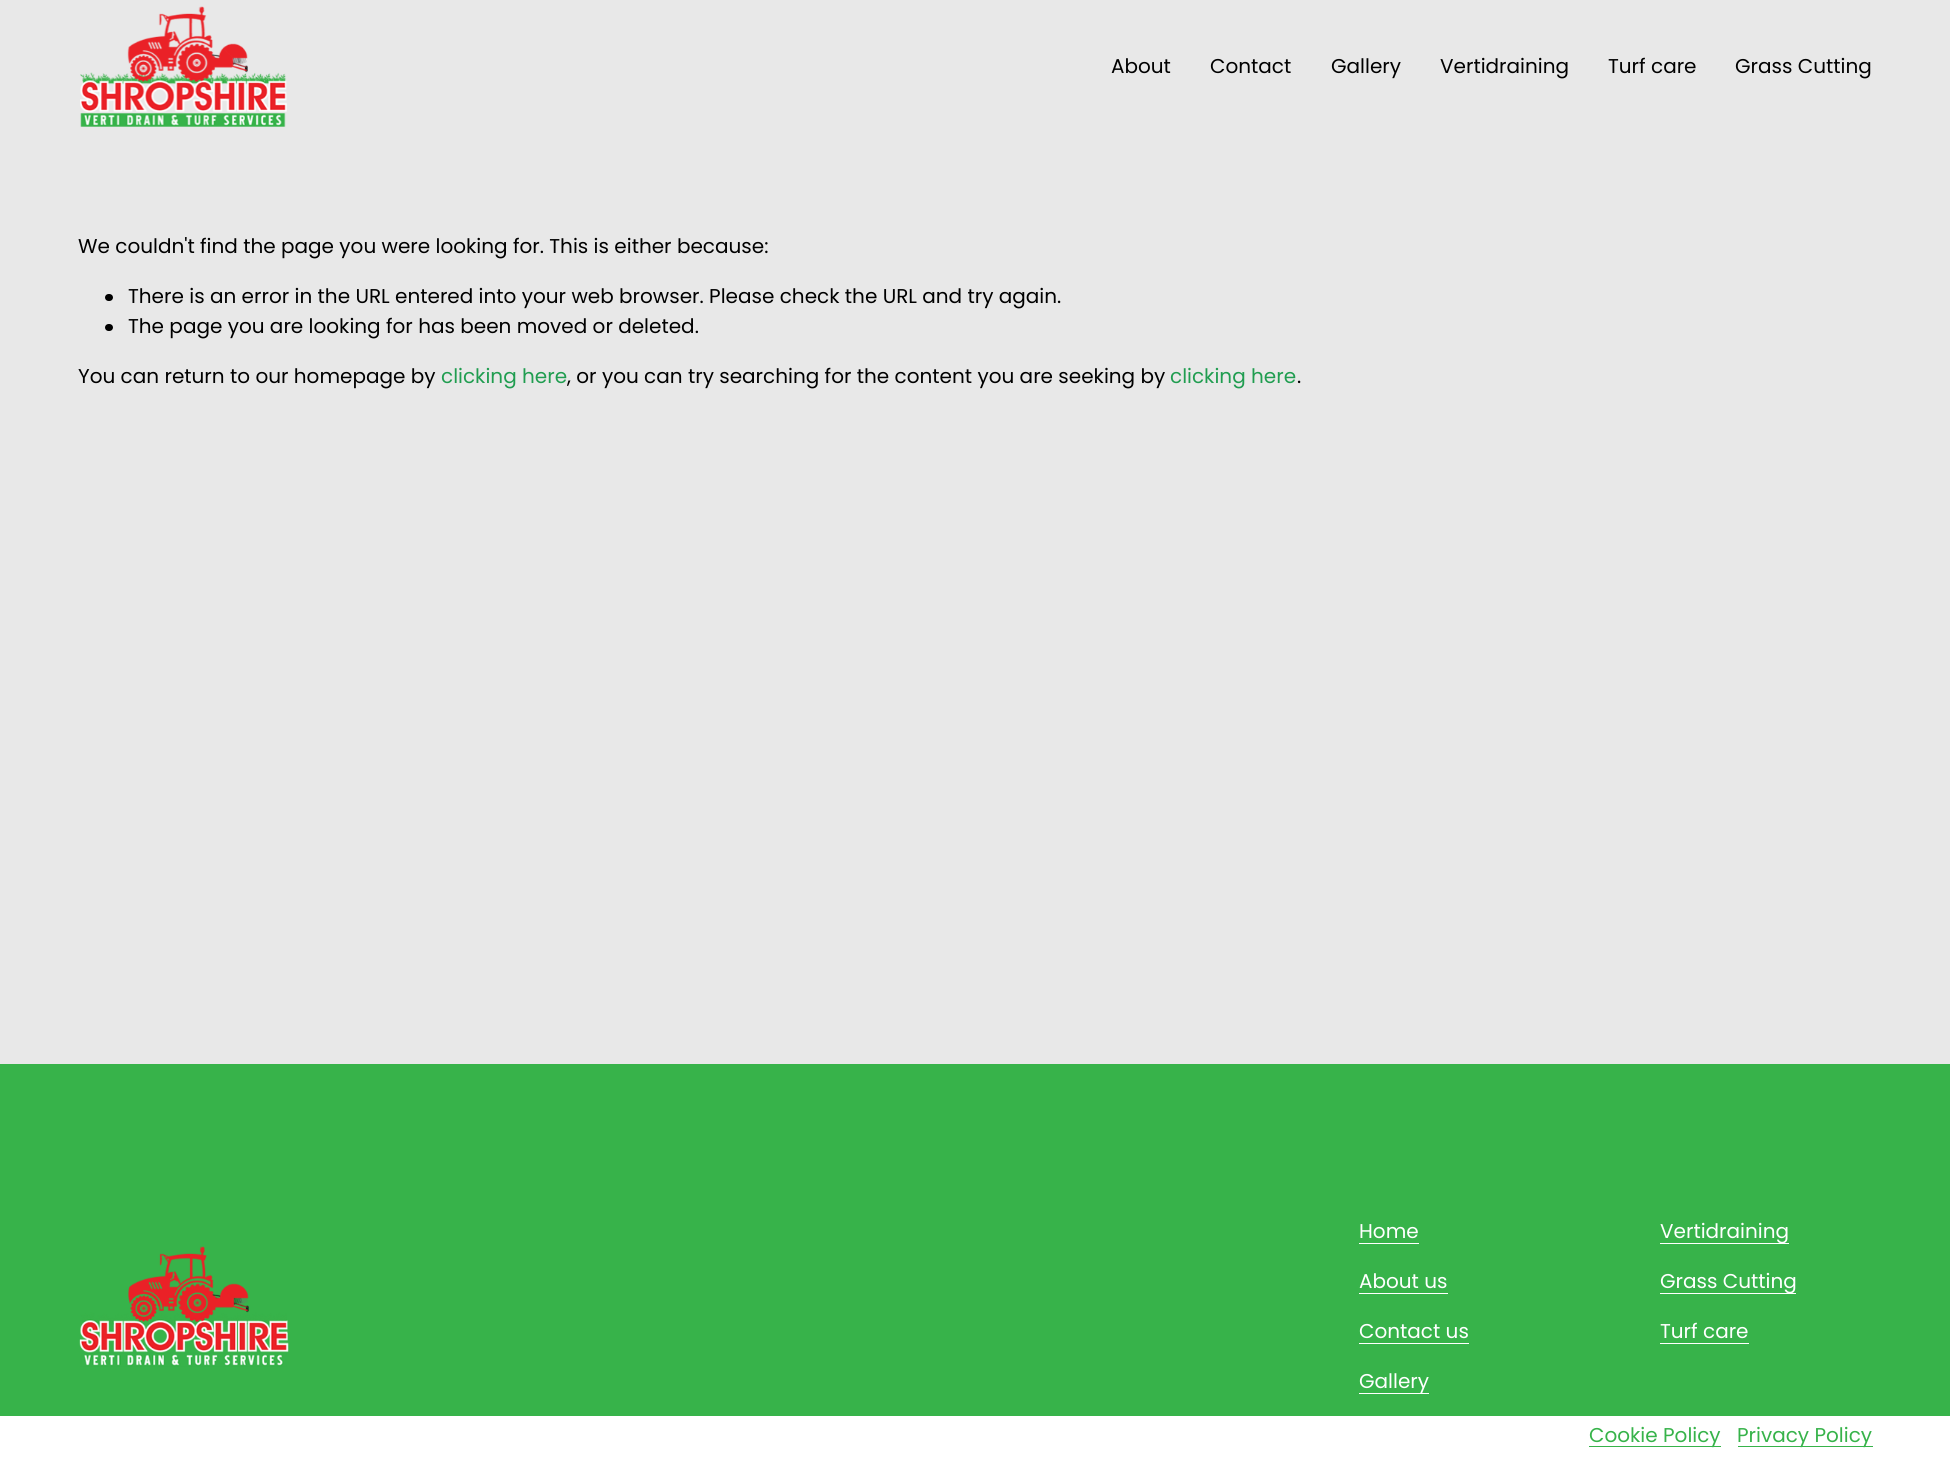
import math
import cairo


def use_color(cr, r, g, b):
  cr.set_source_rgb(r / 255, g / 255, b / 255)

def text(cr, x, y, s, family, size, color, bold=False, italic=False):
  cr.select_font_face(family, cairo.FONT_SLANT_ITALIC if italic else cairo.FONT_SLANT_NORMAL, cairo.FONT_WEIGHT_BOLD if bold else cairo.FONT_WEIGHT_NORMAL)
  cr.set_font_size(size)
  use_color(cr, *color)
  cr.move_to(x, y)
  cr.show_text(s)

def box(cr, x, y, w, h, *color):
  use_color(cr, *color)
  cr.rectangle(x, y, w, h)
  cr.fill()

def round_rect(cr, x, y, w, h, r):
  cr.new_sub_path()
  for i, (u, v) in enumerate([(x + w - r, y + h - r), (x + r, y + h - r), (x + r, y + r), (x + w - r, y + r)]):
    cr.arc(u, v, r, i * math.pi / 2, (i + 1) * math.pi / 2)
  cr.close_path()

def picture(cr, path, x, y, w, h):
  cr.save()
  cr.set_source_surface(cairo.ImageSurface.create_from_png(path), x, y)
  cr.rectangle(x, y, w, h)
  cr.fill()
  cr.restore()

def draw(cr):
  use_color(cr, 232, 232, 232)
  cr.paint()
  picture(cr, "img_01.png", 80, 6, 207, 121)
  use_color(cr, 0, 0, 0)
  round_rect(cr, 105, 294, 8, 7, 3.5)
  cr.fill()
  round_rect(cr, 105, 324, 8, 7, 3.5)
  cr.fill()
  box(cr, 0, 1064, 1950, 352, 55, 179, 74)
  picture(cr, "img_02.png", 79, 1246, 210, 121)
  box(cr, 1359, 1243, 60, 1, 255, 255, 255)
  box(cr, 1359, 1293, 89, 1, 255, 255, 255)
  box(cr, 1359, 1343, 110, 1, 255, 255, 255)
  box(cr, 1359, 1393, 70, 1, 255, 255, 255)
  box(cr, 1660, 1243, 129, 1, 255, 255, 255)
  box(cr, 1660, 1293, 136, 1, 255, 255, 255)
  box(cr, 1660, 1343, 89, 1, 255, 255, 255)
  box(cr, 0, 1416, 1950, 42, 255, 255, 255)
  box(cr, 1589, 1446, 132, 1, 55, 179, 74)
  box(cr, 1738, 1446, 135, 1, 55, 179, 74)
  text(cr, 1111, 73, "About", "Poppins", 20, (0, 0, 0))
  text(cr, 1210, 73, "Contact", "Poppins", 20, (0, 0, 0))
  text(cr, 1331, 73, "Gallery", "Poppins", 20, (0, 0, 0))
  text(cr, 1440, 73, "Vertidraining", "Poppins", 20, (0, 0, 0))
  text(cr, 1608, 73, "Turf care", "Poppins", 20, (0, 0, 0))
  text(cr, 1735, 73, "Grass Cutting", "Poppins", 20, (0, 0, 0))
  text(cr, 78, 253, "We couldn't find the page you were looking for. This is either because:", "Poppins", 20, (0, 0, 0))
  text(cr, 128, 303, "There is an error in the URL entered into your web browser. Please check the URL and try again.", "Poppins", 20, (0, 0, 0))
  text(cr, 128, 333, "The page you are looking for has been moved or deleted.", "Poppins", 20, (0, 0, 0))
  text(cr, 78, 383, "You can return to our homepage by", "Poppins", 20, (0, 0, 0))
  text(cr, 441, 383, "clicking here", "Poppins", 20, (32, 157, 80))
  text(cr, 567, 383, ", or you can try searching for the content you are seeking by", "Poppins", 20, (0, 0, 0))
  text(cr, 1170, 383, "clicking here", "Poppins", 20, (32, 157, 80))
  text(cr, 1297, 383, ".", "Poppins", 20, (0, 0, 0))
  text(cr, 1359, 1238, "Home", "Poppins", 20, (255, 255, 255))
  text(cr, 1359, 1288, "About us", "Poppins", 20, (255, 255, 255))
  text(cr, 1359, 1338, "Contact us", "Poppins", 20, (255, 255, 255))
  text(cr, 1359, 1388, "Gallery", "Poppins", 20, (255, 255, 255))
  text(cr, 1660, 1238, "Vertidraining", "Poppins", 20, (255, 255, 255))
  text(cr, 1660, 1288, "Grass Cutting", "Poppins", 20, (255, 255, 255))
  text(cr, 1660, 1338, "Turf care", "Poppins", 20, (255, 255, 255))
  text(cr, 1589, 1442, "Cookie Policy", "Poppins", 20, (55, 179, 74))
  text(cr, 1737, 1442, "Privacy Policy", "Poppins", 20, (55, 179, 74))


surface = cairo.ImageSurface(cairo.FORMAT_RGB24, 1950, 1458)
cr = cairo.Context(surface)
options = cairo.FontOptions()
options.set_hint_metrics(cairo.HINT_METRICS_OFF)
options.set_hint_style(cairo.HINT_STYLE_NONE)
cr.set_font_options(options)
cr.set_miter_limit(4)
draw(cr)
surface.write_to_png("out.png")
